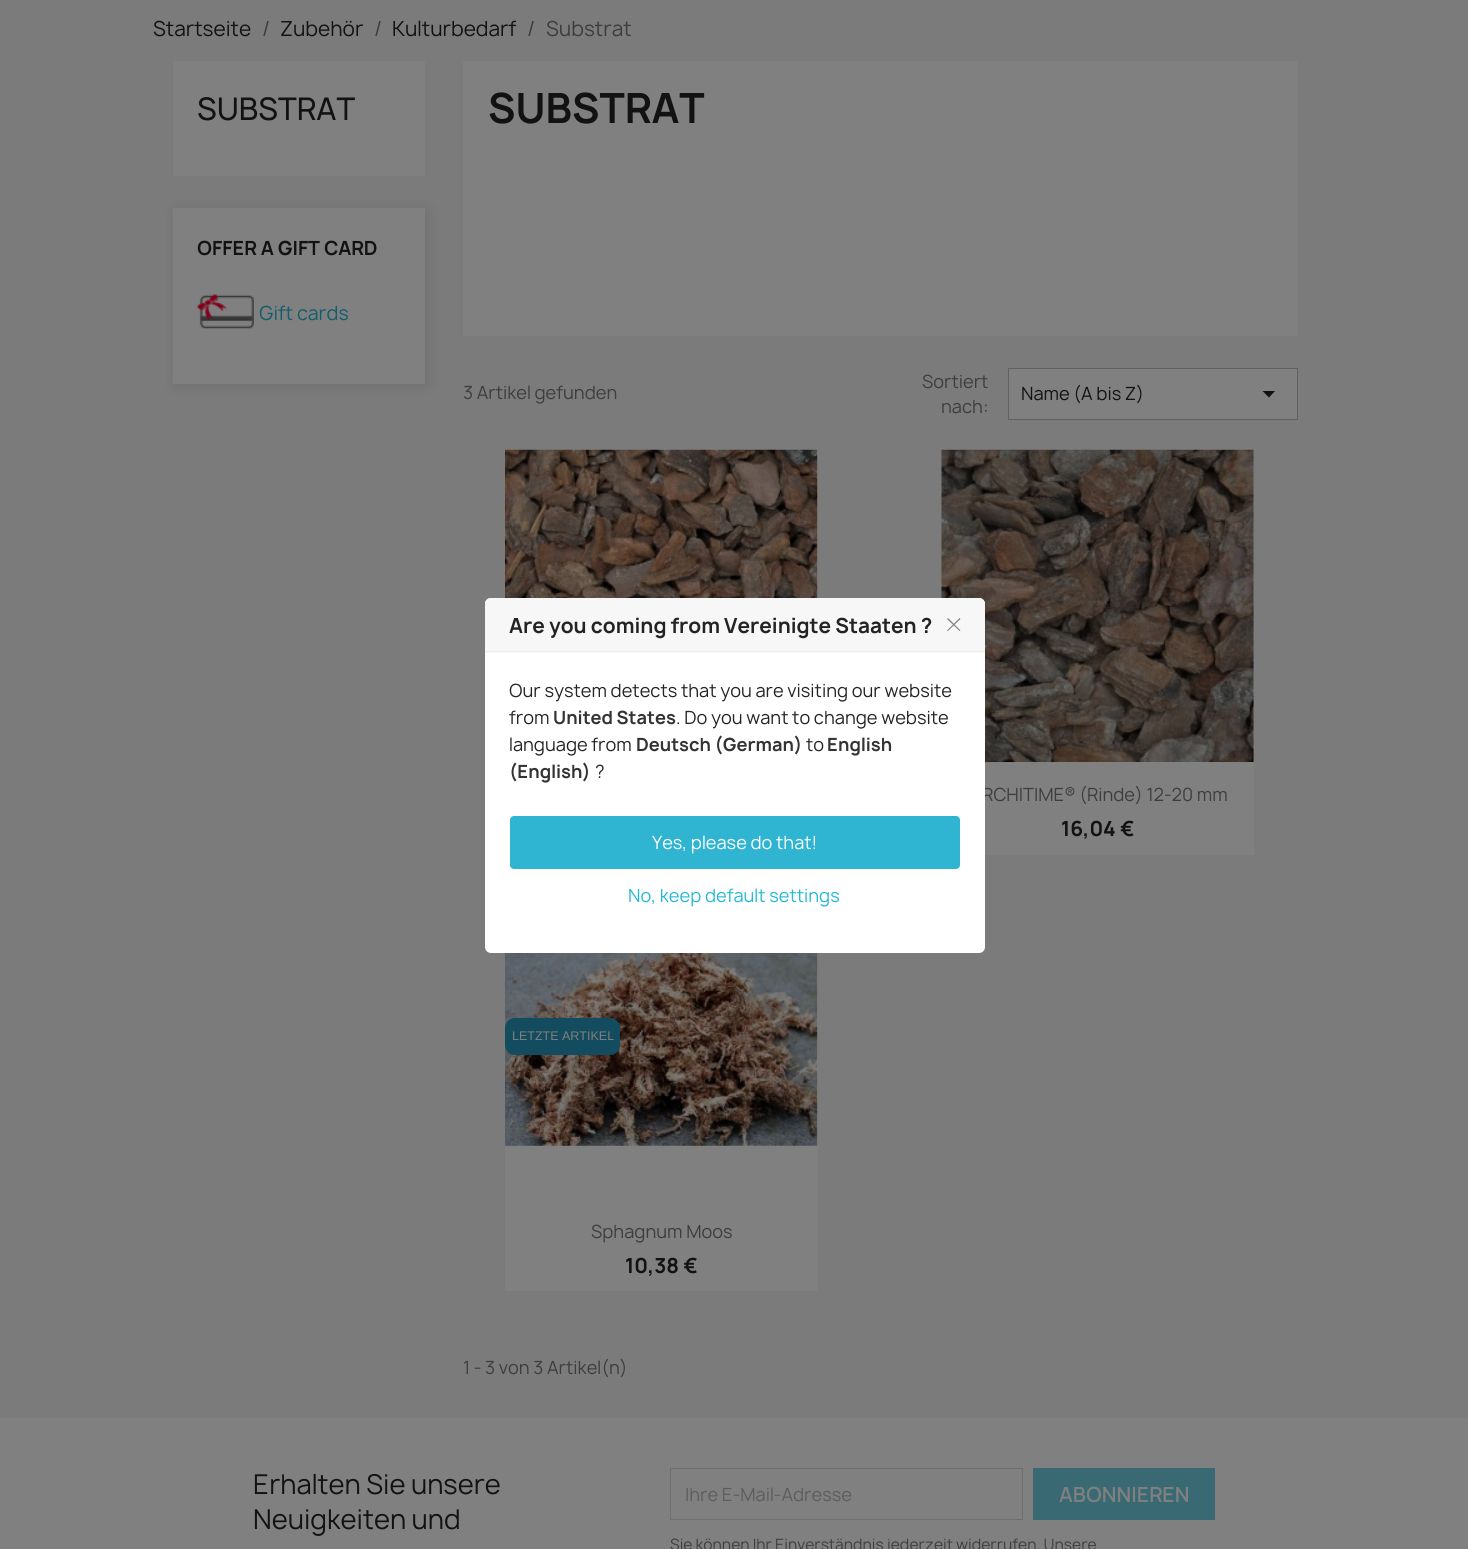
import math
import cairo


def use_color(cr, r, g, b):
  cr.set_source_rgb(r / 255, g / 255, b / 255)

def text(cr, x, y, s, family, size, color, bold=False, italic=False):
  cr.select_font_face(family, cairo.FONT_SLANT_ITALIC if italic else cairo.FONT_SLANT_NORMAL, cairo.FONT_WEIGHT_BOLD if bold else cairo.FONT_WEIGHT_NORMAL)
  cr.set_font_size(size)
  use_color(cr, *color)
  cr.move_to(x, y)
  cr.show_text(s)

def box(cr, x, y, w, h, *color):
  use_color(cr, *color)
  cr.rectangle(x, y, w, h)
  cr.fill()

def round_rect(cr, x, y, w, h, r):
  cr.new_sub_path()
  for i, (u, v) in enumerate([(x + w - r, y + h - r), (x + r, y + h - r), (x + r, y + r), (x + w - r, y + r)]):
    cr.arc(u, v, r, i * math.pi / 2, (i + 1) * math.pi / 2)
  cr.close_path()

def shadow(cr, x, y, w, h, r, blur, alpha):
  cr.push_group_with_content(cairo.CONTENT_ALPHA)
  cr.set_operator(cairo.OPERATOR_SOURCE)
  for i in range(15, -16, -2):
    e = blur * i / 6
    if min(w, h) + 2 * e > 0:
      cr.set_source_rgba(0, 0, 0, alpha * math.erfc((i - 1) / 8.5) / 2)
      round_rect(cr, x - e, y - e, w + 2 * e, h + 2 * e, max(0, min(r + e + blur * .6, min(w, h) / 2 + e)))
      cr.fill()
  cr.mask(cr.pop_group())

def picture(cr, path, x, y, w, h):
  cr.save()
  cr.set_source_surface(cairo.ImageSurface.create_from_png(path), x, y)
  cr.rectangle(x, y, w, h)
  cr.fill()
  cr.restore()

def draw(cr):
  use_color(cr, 128, 128, 128)
  cr.paint()
  box(cr, 0, 0, 1468, 1418, 123, 123, 123)
  box(cr, 173, 61, 252, 115, 128, 128, 128)
  use_color(cr, 0, 0, 0)
  shadow(cr, 175, 210, 253, 176, 0, 7, 0.1)
  box(cr, 173, 208, 252, 176, 128, 128, 128)
  picture(cr, "img_01.png", 197, 294, 57, 35)
  box(cr, 463, 61, 835, 275, 128, 128, 128)
  cr.rectangle(1008.5, 368.5, 289, 51)
  cr.fill_preserve()
  use_color(cr, 96, 96, 96)
  cr.set_line_width(1)
  cr.stroke()
  use_color(cr, 18, 18, 18)
  cr.new_path()
  cr.move_to(1262.5, 391)
  cr.line_to(1275, 391)
  cr.line_to(1269, 397.5)
  cr.close_path()
  cr.fill()
  box(cr, 817, 450, 1, 148, 128, 128, 128)
  picture(cr, "img_02.png", 505, 449, 313, 149)
  box(cr, 941, 450, 313, 405, 128, 128, 128)
  picture(cr, "img_03.png", 941, 449, 313, 313)
  box(cr, 505, 953, 313, 338, 128, 128, 128)
  picture(cr, "img_04.png", 505, 953, 313, 194)
  use_color(cr, 19, 75, 95)
  round_rect(cr, 505, 1018, 115, 37, 10)
  cr.fill()
  cr.rectangle(670.5, 1468.5, 352, 51)
  use_color(cr, 111, 111, 111)
  cr.stroke()
  box(cr, 1033, 1468, 182, 52, 57, 105, 115)
  text(cr, 153, 36, "Startseite", "Manrope", 20, (18, 18, 18))
  text(cr, 262, 36, "/", "Manrope", 20, (61, 61, 61))
  text(cr, 280, 36, "Zubehör", "Manrope", 20, (18, 18, 18))
  text(cr, 374, 36, "/", "Manrope", 20, (61, 61, 61))
  text(cr, 392, 36, "Kulturbedarf", "Manrope", 20, (18, 18, 18))
  text(cr, 527, 36, "/", "Manrope", 20, (61, 61, 61))
  text(cr, 546, 36, "Substrat", "Manrope", 20, (61, 61, 61))
  text(cr, 197, 120, "SUBSTRAT", "Manrope Medium", 30, (18, 18, 18))
  text(cr, 197, 255, "OFFER A GIFT CARD", "Manrope", 18.75, (18, 18, 18), bold=True)
  text(cr, 259, 320, "Gift cards", "Manrope", 18.75, (18, 93, 108))
  text(cr, 488, 123, "SUBSTRAT", "Manrope", 40, (18, 18, 18), bold=True)
  text(cr, 463, 399, "3 Artikel gefunden", "Manrope", 17.5, (61, 61, 61))
  text(cr, 922, 388, "Sortiert", "Manrope", 17.5, (61, 61, 61))
  text(cr, 941, 413, "nach:", "Manrope", 17.5, (61, 61, 61))
  text(cr, 1021, 400, "Name (A bis Z)", "Manrope", 17.5, (18, 18, 18))
  text(cr, 982, 801, "RCHITIME® (Rinde) 12-20 mm", "Manrope", 17.5, (61, 61, 61))
  text(cr, 1061, 836, "16,04 €", "Manrope", 20, (18, 18, 18), bold=True)
  text(cr, 512, 1040, "LETZTE ARTIKEL", "Liberation Sans", 12.5, (128, 128, 128))
  text(cr, 591, 1238, "Sphagnum Moos", "Manrope", 17.5, (61, 61, 61))
  text(cr, 625, 1273, "10,38 €", "Manrope", 20, (18, 18, 18), bold=True)
  text(cr, 463, 1374, "1 - 3 von 3 Artikel(n)", "Manrope", 17.5, (61, 61, 61))
  text(cr, 253, 1494, "Erhalten Sie unsere", "Manrope", 26.25, (18, 18, 18))
  text(cr, 253, 1529, "Neuigkeiten und", "Manrope", 26.25, (18, 18, 18))
  text(cr, 685, 1501, "Ihre E-Mail-Adresse", "Manrope", 17.5, (92, 92, 92))
  text(cr, 1059, 1502, "ABONNIEREN", "Manrope SemiBold", 20, (128, 128, 128))
  text(cr, 670, 1550, "Sie können Ihr Einverständnis jederzeit widerrufen. Unsere", "Manrope", 15, (61, 61, 61))
  use_color(cr, 255, 255, 255)
  round_rect(cr, 485, 598, 500, 355, 6)
  cr.fill()
  use_color(cr, 247, 247, 247)
  cr.new_path()
  cr.move_to(491, 598)
  cr.line_to(979, 598)
  cr.curve_to(982.5, 598, 985, 600.5, 985, 604)
  cr.line_to(985, 653)
  cr.line_to(485, 653)
  cr.line_to(485, 604)
  cr.curve_to(485, 600.5, 487.5, 598, 491, 598)
  cr.close_path()
  cr.fill()
  box(cr, 485, 651, 500, 1, 238, 238, 238)
  text(cr, 509, 633, "Are you coming from Vereinigte Staaten ?", "Manrope", 20, (35, 35, 35), bold=True)
  use_color(cr, 132, 132, 132)
  cr.new_path()
  cr.move_to(959.5, 618)
  cr.line_to(960.5, 619)
  cr.line_to(948, 631)
  cr.line_to(947, 630.5)
  cr.close_path()
  cr.fill()
  cr.new_path()
  cr.move_to(947, 619)
  cr.line_to(948, 618)
  cr.line_to(960.5, 630.5)
  cr.line_to(959.5, 631)
  cr.close_path()
  cr.fill()
  text(cr, 509, 697, "Our system detects that you are visiting our website", "Manrope", 17.5, (35, 35, 35))
  text(cr, 509, 724, "from", "Manrope", 17.5, (35, 35, 35))
  text(cr, 553, 724, "United States", "Manrope", 17.5, (51, 51, 51), bold=True)
  text(cr, 676, 724, ". Do you want to change website", "Manrope", 17.5, (35, 35, 35))
  text(cr, 509, 751, "language from", "Manrope", 17.5, (35, 35, 35))
  text(cr, 636, 751, "Deutsch (German)", "Manrope", 17.5, (51, 51, 51), bold=True)
  text(cr, 806, 751, "to", "Manrope", 17.5, (35, 35, 35))
  text(cr, 827, 751, "English", "Manrope", 17.5, (51, 51, 51), bold=True)
  text(cr, 509, 778, "(English)", "Manrope", 17.5, (51, 51, 51), bold=True)
  text(cr, 595, 778, "?", "Manrope", 17.5, (35, 35, 35))
  use_color(cr, 47, 181, 210)
  round_rect(cr, 510, 816, 450, 53, 4)
  cr.fill()
  text(cr, 652, 849, "Yes, please do that!", "Manrope", 17.5, (255, 255, 255))
  text(cr, 628, 902, "No, keep default settings", "Manrope", 17.5, (36, 185, 215))


surface = cairo.ImageSurface(cairo.FORMAT_RGB24, 1468, 1549)
cr = cairo.Context(surface)
options = cairo.FontOptions()
options.set_hint_metrics(cairo.HINT_METRICS_OFF)
options.set_hint_style(cairo.HINT_STYLE_NONE)
cr.set_font_options(options)
cr.set_miter_limit(4)
draw(cr)
surface.write_to_png("out.png")
